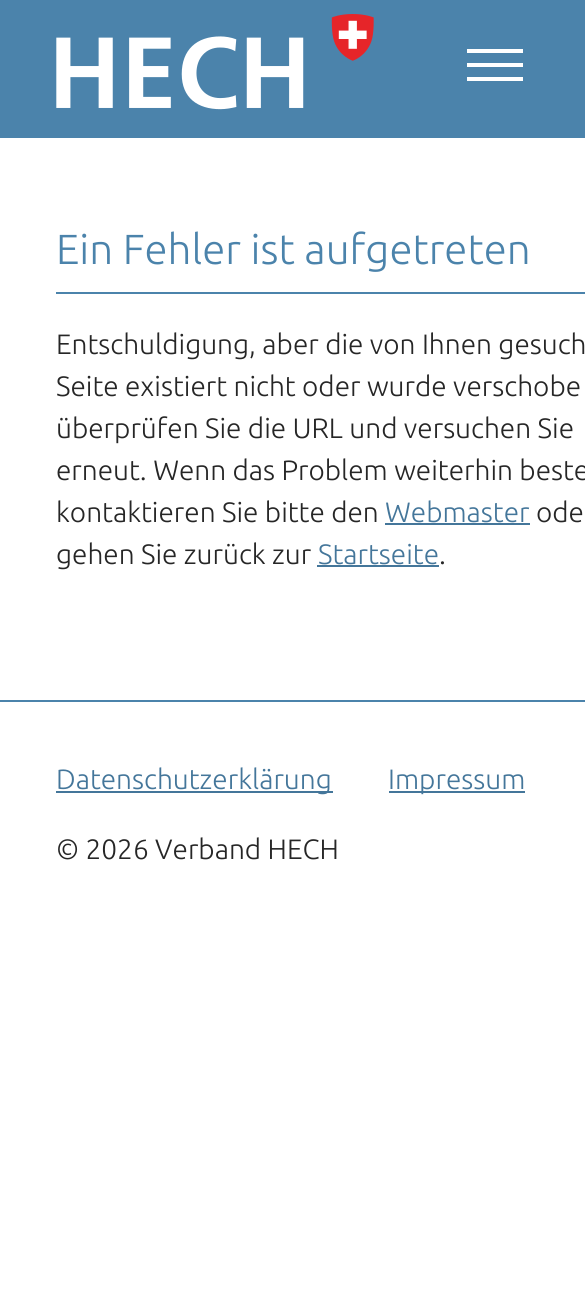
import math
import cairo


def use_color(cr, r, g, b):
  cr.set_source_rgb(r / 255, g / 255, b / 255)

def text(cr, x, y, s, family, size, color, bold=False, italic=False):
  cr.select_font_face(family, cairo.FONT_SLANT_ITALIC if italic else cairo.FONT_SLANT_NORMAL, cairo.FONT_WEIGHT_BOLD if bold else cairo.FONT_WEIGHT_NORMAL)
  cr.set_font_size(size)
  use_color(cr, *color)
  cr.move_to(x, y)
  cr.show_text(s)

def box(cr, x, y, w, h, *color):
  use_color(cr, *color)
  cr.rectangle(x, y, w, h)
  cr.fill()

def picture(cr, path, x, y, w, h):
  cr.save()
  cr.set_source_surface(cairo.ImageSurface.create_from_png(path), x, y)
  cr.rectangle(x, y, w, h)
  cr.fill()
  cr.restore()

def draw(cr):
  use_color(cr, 255, 255, 255)
  cr.paint()
  box(cr, 0, 0, 585, 138, 75, 131, 171)
  picture(cr, "img_01.png", 56, 14, 318, 96)
  box(cr, 467, 49, 56, 4, 255, 255, 255)
  box(cr, 467, 63, 56, 4, 255, 255, 255)
  box(cr, 467, 77, 56, 4, 255, 255, 255)
  box(cr, 56, 292, 529, 2, 75, 131, 171)
  box(cr, 385, 523, 145, 2, 68, 118, 154)
  box(cr, 317, 565, 122, 2, 68, 118, 154)
  box(cr, 0, 700, 585, 2, 75, 131, 171)
  box(cr, 56, 791, 277, 2, 68, 118, 154)
  box(cr, 389, 791, 136, 2, 68, 118, 154)
  text(cr, 56, 264, "Ein Fehler ist aufgetreten", "Ubuntu Light", 42, (75, 131, 171))
  text(cr, 56, 354, "Entschuldigung, aber die von Ihnen gesuch", "Ubuntu Light", 28, (38, 38, 38))
  text(cr, 56, 396, "Seite existiert nicht oder wurde verschobe", "Ubuntu Light", 28, (38, 38, 38))
  text(cr, 56, 438, "überprüfen Sie die URL und versuchen Sie", "Ubuntu Light", 28, (38, 38, 38))
  text(cr, 56, 480, "erneut. Wenn das Problem weiterhin beste", "Ubuntu Light", 28, (38, 38, 38))
  text(cr, 56, 522, "kontaktieren Sie bitte den", "Ubuntu Light", 28, (38, 38, 38))
  text(cr, 385, 522, "Webmaster", "Ubuntu Light", 28, (68, 118, 154))
  text(cr, 536, 522, "ode", "Ubuntu Light", 28, (38, 38, 38))
  text(cr, 56, 564, "gehen Sie zurück zur", "Ubuntu Light", 28, (38, 38, 38))
  text(cr, 318, 564, "Startseite", "Ubuntu Light", 28, (68, 118, 154))
  text(cr, 439, 564, ".", "Ubuntu Light", 28, (38, 38, 38))
  text(cr, 56, 789, "Datenschutzerklärung", "Ubuntu Light", 28, (68, 118, 154))
  text(cr, 388, 789, "Impressum", "Ubuntu Light", 28, (68, 118, 154))
  text(cr, 56, 859, "© 2026 Verband HECH", "Ubuntu Light", 28, (38, 38, 38))


surface = cairo.ImageSurface(cairo.FORMAT_RGB24, 585, 1292)
cr = cairo.Context(surface)
options = cairo.FontOptions()
options.set_hint_metrics(cairo.HINT_METRICS_OFF)
options.set_hint_style(cairo.HINT_STYLE_NONE)
cr.set_font_options(options)
cr.set_miter_limit(4)
draw(cr)
surface.write_to_png("out.png")
